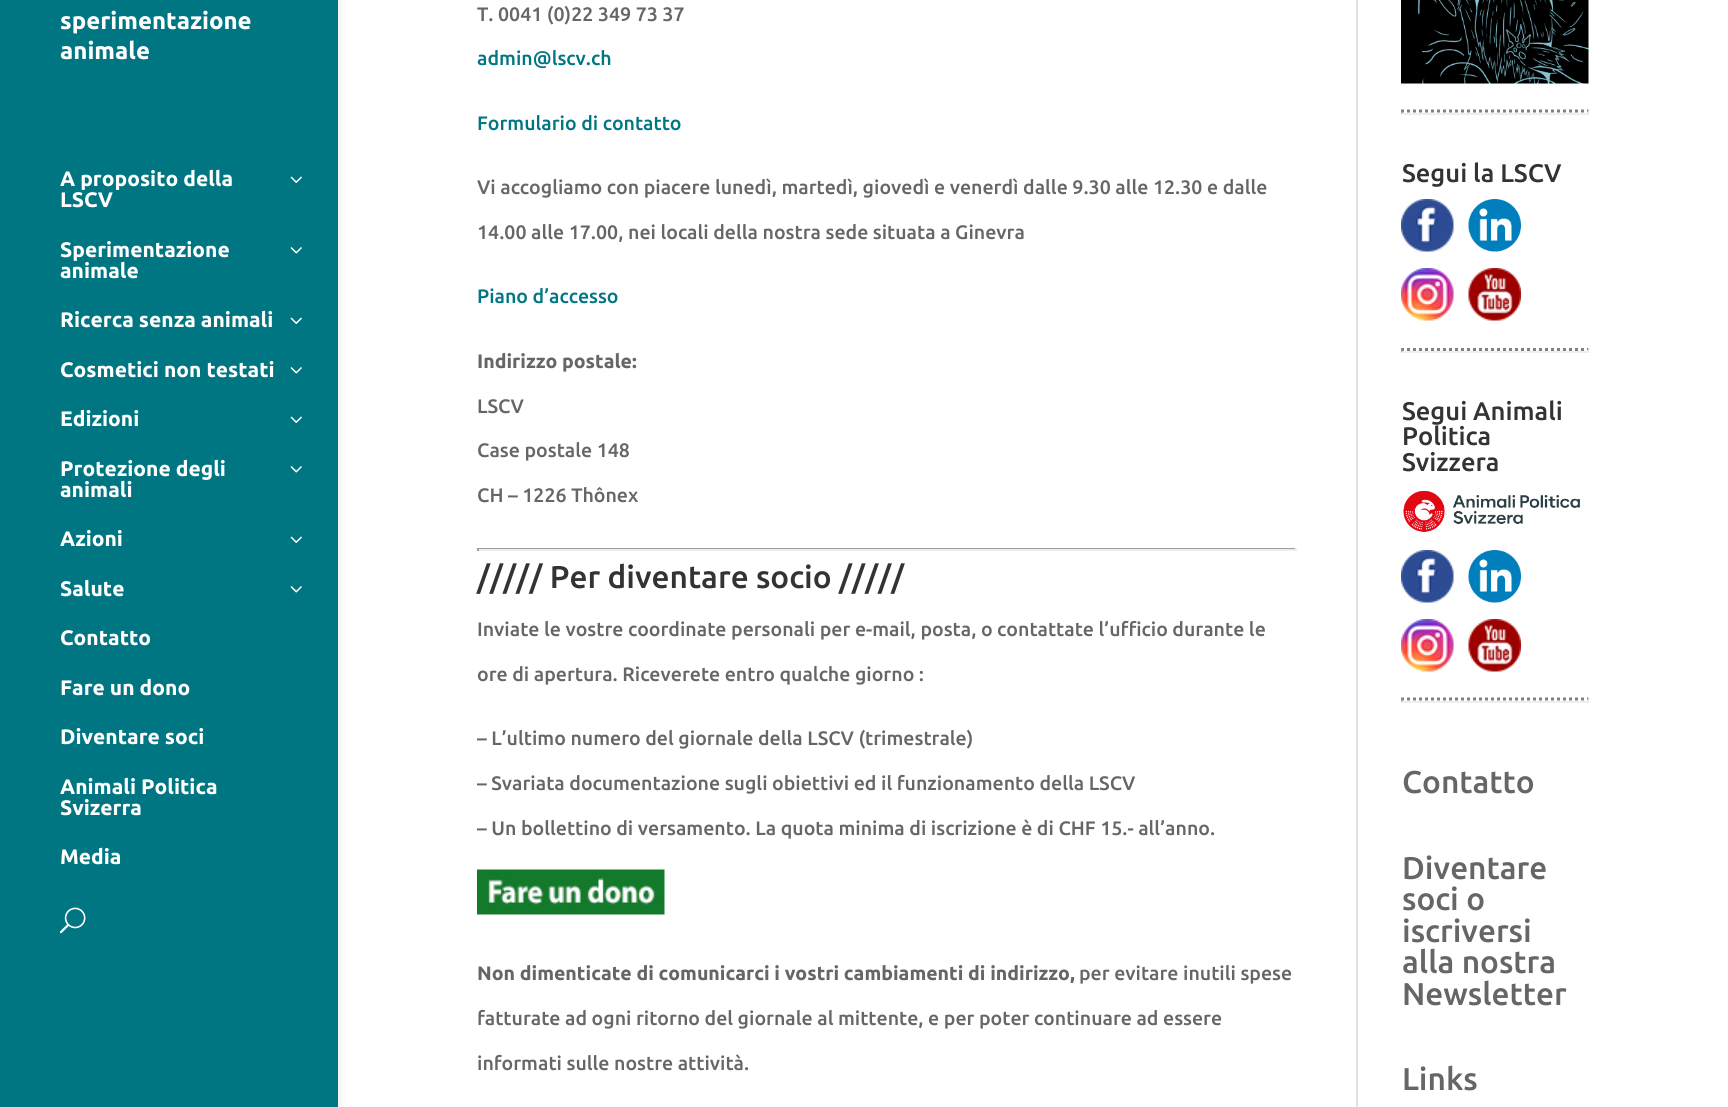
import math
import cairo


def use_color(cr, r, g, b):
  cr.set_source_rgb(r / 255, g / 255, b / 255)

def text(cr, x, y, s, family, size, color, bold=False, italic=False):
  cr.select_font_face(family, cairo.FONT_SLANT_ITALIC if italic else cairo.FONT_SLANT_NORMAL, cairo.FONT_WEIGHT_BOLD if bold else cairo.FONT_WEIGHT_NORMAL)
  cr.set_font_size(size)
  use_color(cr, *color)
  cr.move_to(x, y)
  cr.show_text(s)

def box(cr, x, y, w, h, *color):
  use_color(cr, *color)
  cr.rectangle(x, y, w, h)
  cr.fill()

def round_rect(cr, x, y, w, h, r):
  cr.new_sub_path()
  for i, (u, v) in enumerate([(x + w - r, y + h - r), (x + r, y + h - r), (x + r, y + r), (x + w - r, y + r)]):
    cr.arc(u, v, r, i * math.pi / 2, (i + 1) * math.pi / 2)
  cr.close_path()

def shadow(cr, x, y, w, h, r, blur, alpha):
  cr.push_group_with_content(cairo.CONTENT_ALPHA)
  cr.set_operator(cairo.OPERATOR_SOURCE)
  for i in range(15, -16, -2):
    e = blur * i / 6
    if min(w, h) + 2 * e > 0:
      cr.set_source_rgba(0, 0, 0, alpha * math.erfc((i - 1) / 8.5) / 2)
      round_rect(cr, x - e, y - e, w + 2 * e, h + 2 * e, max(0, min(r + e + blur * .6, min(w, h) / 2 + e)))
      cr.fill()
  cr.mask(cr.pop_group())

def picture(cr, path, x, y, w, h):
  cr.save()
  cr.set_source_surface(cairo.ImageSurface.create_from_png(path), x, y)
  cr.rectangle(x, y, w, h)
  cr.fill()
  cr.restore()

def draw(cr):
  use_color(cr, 255, 255, 255)
  cr.paint()
  use_color(cr, 0, 0, 0)
  shadow(cr, 0, -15, 338, 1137, 0, 5, 0.1)
  box(cr, 0, 0, 338, 1107, 0, 118, 131)
  picture(cr, "img_01.png", 290, 176, 12, 7)
  picture(cr, "img_02.png", 290, 247, 12, 7)
  picture(cr, "img_01.png", 290, 317, 12, 7)
  picture(cr, "img_02.png", 290, 367, 12, 7)
  picture(cr, "img_01.png", 290, 416, 12, 7)
  picture(cr, "img_02.png", 290, 466, 12, 7)
  picture(cr, "img_01.png", 290, 536, 12, 7)
  picture(cr, "img_02.png", 290, 586, 12, 7)
  picture(cr, "img_03.png", 59, 907, 27, 27)
  box(cr, 1356, 0, 2, 1107, 226, 226, 226)
  box(cr, 477, 548, 819, 1, 159, 159, 159)
  box(cr, 1295, 548, 2, 3, 238, 238, 238)
  box(cr, 477, 549, 819, 2, 238, 238, 238)
  box(cr, 477, 548, 2, 3, 159, 159, 159)
  picture(cr, "img_04.png", 477, 869, 188, 46)
  picture(cr, "img_05.png", 1401, 0, 188, 84)
  cr.new_path()
  cr.move_to(1401, 111)
  cr.line_to(1588.5, 111)
  use_color(cr, 128, 128, 128)
  cr.set_line_width(3)
  cr.set_dash([3, 3])
  cr.stroke()
  use_color(cr, 238, 238, 238)
  cr.new_path()
  cr.move_to(1588.5, 109.5)
  cr.line_to(1588.5, 114)
  cr.line_to(1587, 112.5)
  cr.close_path()
  cr.fill()
  box(cr, 1401, 113, 188, 2, 238, 238, 238)
  use_color(cr, 159, 159, 159)
  cr.new_path()
  cr.move_to(1401, 114)
  cr.line_to(1401, 109.5)
  cr.line_to(1402.5, 112.5)
  cr.close_path()
  cr.fill()
  picture(cr, "img_06.png", 1401, 199, 53, 53)
  picture(cr, "img_07.png", 1468, 199, 53, 53)
  picture(cr, "img_08.png", 1401, 268, 53, 53)
  picture(cr, "img_09.png", 1468, 268, 53, 53)
  cr.new_path()
  cr.move_to(1401, 349.5)
  cr.line_to(1588.5, 349.5)
  use_color(cr, 128, 128, 128)
  cr.stroke()
  use_color(cr, 238, 238, 238)
  cr.new_path()
  cr.move_to(1588.5, 348)
  cr.line_to(1588.5, 352.5)
  cr.line_to(1587, 351)
  cr.close_path()
  cr.fill()
  box(cr, 1401, 351, 188, 2, 238, 238, 238)
  use_color(cr, 159, 159, 159)
  cr.new_path()
  cr.move_to(1401, 352.5)
  cr.line_to(1401, 348)
  cr.line_to(1402.5, 351)
  cr.close_path()
  cr.fill()
  picture(cr, "img_10.png", 1403, 491, 177, 41)
  picture(cr, "img_06.png", 1401, 550, 53, 53)
  picture(cr, "img_11.png", 1468, 550, 53, 53)
  picture(cr, "img_08.png", 1401, 619, 53, 53)
  picture(cr, "img_09.png", 1468, 619, 53, 53)
  cr.new_path()
  cr.move_to(1401, 699)
  cr.line_to(1588.5, 699)
  use_color(cr, 128, 128, 128)
  cr.stroke()
  use_color(cr, 238, 238, 238)
  cr.new_path()
  cr.move_to(1588.5, 697.5)
  cr.line_to(1588.5, 702)
  cr.line_to(1587, 700.5)
  cr.close_path()
  cr.fill()
  box(cr, 1401, 701, 188, 2, 238, 238, 238)
  use_color(cr, 159, 159, 159)
  cr.new_path()
  cr.move_to(1401, 702)
  cr.line_to(1401, 697.5)
  cr.line_to(1402.5, 700.5)
  cr.close_path()
  cr.fill()
  text(cr, 60, 29, "sperimentazione", "Ubuntu", 24, (255, 255, 255), bold=True)
  text(cr, 60, 59, "animale", "Ubuntu", 24, (255, 255, 255), bold=True)
  text(cr, 60, 186, "A proposito della", "Ubuntu", 21, (255, 255, 255), bold=True)
  text(cr, 60, 207, "LSCV", "Ubuntu", 21, (255, 255, 255), bold=True)
  text(cr, 60, 257, "Sperimentazione", "Ubuntu", 21, (255, 255, 255), bold=True)
  text(cr, 60, 278, "animale", "Ubuntu", 21, (255, 255, 255), bold=True)
  text(cr, 60, 327, "Ricerca senza animali", "Ubuntu", 21, (255, 255, 255), bold=True)
  text(cr, 60, 377, "Cosmetici non testati", "Ubuntu", 21, (255, 255, 255), bold=True)
  text(cr, 60, 426, "Edizioni", "Ubuntu", 21, (255, 255, 255), bold=True)
  text(cr, 60, 476, "Protezione degli", "Ubuntu", 21, (255, 255, 255), bold=True)
  text(cr, 60, 497, "animali", "Ubuntu", 21, (255, 255, 255), bold=True)
  text(cr, 60, 546, "Azioni", "Ubuntu", 21, (255, 255, 255), bold=True)
  text(cr, 60, 596, "Salute", "Ubuntu", 21, (255, 255, 255), bold=True)
  text(cr, 60, 645, "Contatto", "Ubuntu", 21, (255, 255, 255), bold=True)
  text(cr, 60, 695, "Fare un dono", "Ubuntu", 21, (255, 255, 255), bold=True)
  text(cr, 60, 744, "Diventare soci", "Ubuntu", 21, (255, 255, 255), bold=True)
  text(cr, 60, 794, "Animali Politica", "Ubuntu", 21, (255, 255, 255), bold=True)
  text(cr, 60, 815, "Svizerra", "Ubuntu", 21, (255, 255, 255), bold=True)
  text(cr, 60, 864, "Media", "Ubuntu", 21, (255, 255, 255), bold=True)
  text(cr, 477, 21, "T. 0041 (0)22 349 73 37", "Ubuntu Medium", 19.5, (102, 102, 102))
  text(cr, 477, 65, "admin@lscv.ch", "Ubuntu Medium", 19.5, (0, 118, 131))
  text(cr, 477, 130, "Formulario di contatto", "Ubuntu Medium", 19.5, (0, 118, 131))
  text(cr, 477, 194, "Vi accogliamo con piacere lunedì, martedì, giovedì e venerdì dalle 9.30 alle 12.30 e dalle", "Ubuntu Medium", 19.5, (102, 102, 102))
  text(cr, 477, 239, "14.00 alle 17.00, nei locali della nostra sede situata a Ginevra", "Ubuntu Medium", 19.5, (102, 102, 102))
  text(cr, 477, 303, "Piano d’accesso", "Ubuntu Medium", 19.5, (0, 118, 131))
  text(cr, 477, 368, "Indirizzo postale:", "Ubuntu", 19.5, (102, 102, 102), bold=True)
  text(cr, 477, 413, "LSCV", "Ubuntu Medium", 19.5, (102, 102, 102))
  text(cr, 477, 457, "Case postale 148", "Ubuntu Medium", 19.5, (102, 102, 102))
  text(cr, 477, 502, "CH – 1226 Thônex", "Ubuntu Medium", 19.5, (102, 102, 102))
  text(cr, 477, 588, "///// Per diventare socio /////", "Ubuntu Medium", 31.5, (51, 51, 51))
  text(cr, 477, 636, "Inviate le vostre coordinate personali per e-mail, posta, o contattate l’ufficio durante le", "Ubuntu Medium", 19.5, (102, 102, 102))
  text(cr, 477, 681, "ore di apertura. Riceverete entro qualche giorno :", "Ubuntu Medium", 19.5, (102, 102, 102))
  text(cr, 477, 745, "– L’ultimo numero del giornale della LSCV (trimestrale)", "Ubuntu Medium", 19.5, (102, 102, 102))
  text(cr, 477, 790, "– Svariata documentazione sugli obiettivi ed il funzionamento della LSCV", "Ubuntu Medium", 19.5, (102, 102, 102))
  text(cr, 477, 835, "– Un bollettino di versamento. La quota minima di iscrizione è di CHF 15.- all’anno.", "Ubuntu Medium", 19.5, (102, 102, 102))
  text(cr, 477, 980, "Non dimenticate di comunicarci i vostri cambiamenti di indirizzo,", "Ubuntu", 19.5, (102, 102, 102), bold=True)
  text(cr, 1079, 980, "per evitare inutili spese", "Ubuntu Medium", 19.5, (102, 102, 102))
  text(cr, 477, 1025, "fatturate ad ogni ritorno del giornale al mittente, e per poter continuare ad essere", "Ubuntu Medium", 19.5, (102, 102, 102))
  text(cr, 477, 1070, "informati sulle nostre attività.", "Ubuntu Medium", 19.5, (102, 102, 102))
  text(cr, 1402, 182, "Segui la LSCV", "Ubuntu Medium", 25.5, (51, 51, 51))
  text(cr, 1402, 420, "Segui Animali", "Ubuntu Medium", 25.5, (51, 51, 51))
  text(cr, 1402, 445, "Politica", "Ubuntu Medium", 25.5, (51, 51, 51))
  text(cr, 1402, 471, "Svizzera", "Ubuntu Medium", 25.5, (51, 51, 51))
  text(cr, 1402, 793, "Contatto", "Ubuntu Medium", 31.5, (102, 102, 102))
  text(cr, 1402, 879, "Diventare", "Ubuntu Medium", 31.5, (102, 102, 102))
  text(cr, 1402, 910, "soci o", "Ubuntu Medium", 31.5, (102, 102, 102))
  text(cr, 1402, 942, "iscriversi", "Ubuntu Medium", 31.5, (102, 102, 102))
  text(cr, 1402, 973, "alla nostra", "Ubuntu Medium", 31.5, (102, 102, 102))
  text(cr, 1402, 1005, "Newsletter", "Ubuntu Medium", 31.5, (102, 102, 102))
  text(cr, 1402, 1090, "Links", "Ubuntu Medium", 31.5, (102, 102, 102))


surface = cairo.ImageSurface(cairo.FORMAT_RGB24, 1728, 1107)
cr = cairo.Context(surface)
options = cairo.FontOptions()
options.set_hint_metrics(cairo.HINT_METRICS_OFF)
options.set_hint_style(cairo.HINT_STYLE_NONE)
cr.set_font_options(options)
cr.set_miter_limit(4)
draw(cr)
surface.write_to_png("out.png")
